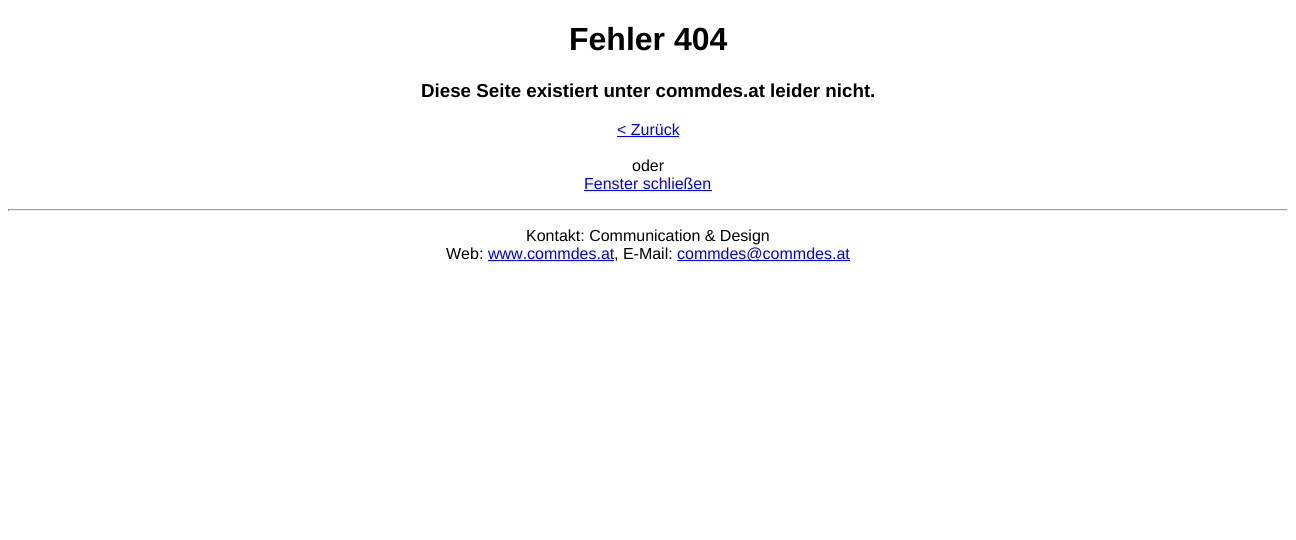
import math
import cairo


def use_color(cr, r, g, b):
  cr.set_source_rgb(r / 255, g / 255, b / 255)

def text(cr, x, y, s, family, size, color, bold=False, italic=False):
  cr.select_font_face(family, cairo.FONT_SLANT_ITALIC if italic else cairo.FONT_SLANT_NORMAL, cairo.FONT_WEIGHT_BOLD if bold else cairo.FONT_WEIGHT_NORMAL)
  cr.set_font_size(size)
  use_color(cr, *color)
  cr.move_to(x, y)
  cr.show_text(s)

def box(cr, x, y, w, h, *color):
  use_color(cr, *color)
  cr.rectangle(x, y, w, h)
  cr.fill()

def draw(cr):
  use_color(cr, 255, 255, 255)
  cr.paint()
  box(cr, 617, 136, 62, 1, 0, 0, 238)
  box(cr, 584, 190, 128, 1, 0, 0, 238)
  box(cr, 8, 209, 1280, 1, 159, 159, 159)
  box(cr, 1287, 209, 1, 2, 238, 238, 238)
  box(cr, 8, 210, 1280, 1, 238, 238, 238)
  box(cr, 8, 209, 1, 2, 159, 159, 159)
  box(cr, 488, 260, 126, 1, 0, 0, 238)
  box(cr, 677, 260, 173, 1, 0, 0, 238)
  text(cr, 569, 50, "Fehler 404", "Liberation Sans", 32, (0, 0, 0), bold=True)
  text(cr, 421, 97, "Diese Seite existiert unter commdes.at leider nicht.", "Liberation Sans", 18.75, (0, 0, 0), bold=True)
  text(cr, 617, 135, "< Zurück", "Liberation Sans", 16, (0, 0, 238))
  text(cr, 632, 171, "oder", "Liberation Sans", 16, (0, 0, 0))
  text(cr, 584, 189, "Fenster schließen", "Liberation Sans", 16, (0, 0, 238))
  text(cr, 526, 241, "Kontakt: Communication & Design", "Liberation Sans", 16, (0, 0, 0))
  text(cr, 446, 259, "Web:", "Liberation Sans", 16, (0, 0, 0))
  text(cr, 488, 259, "www.commdes.at", "Liberation Sans", 16, (0, 0, 238))
  text(cr, 614, 259, ", E-Mail:", "Liberation Sans", 16, (0, 0, 0))
  text(cr, 677, 259, "commdes@commdes.at", "Liberation Sans", 16, (0, 0, 238))


surface = cairo.ImageSurface(cairo.FORMAT_RGB24, 1296, 540)
cr = cairo.Context(surface)
options = cairo.FontOptions()
options.set_hint_metrics(cairo.HINT_METRICS_OFF)
options.set_hint_style(cairo.HINT_STYLE_NONE)
cr.set_font_options(options)
cr.set_miter_limit(4)
draw(cr)
surface.write_to_png("out.png")
